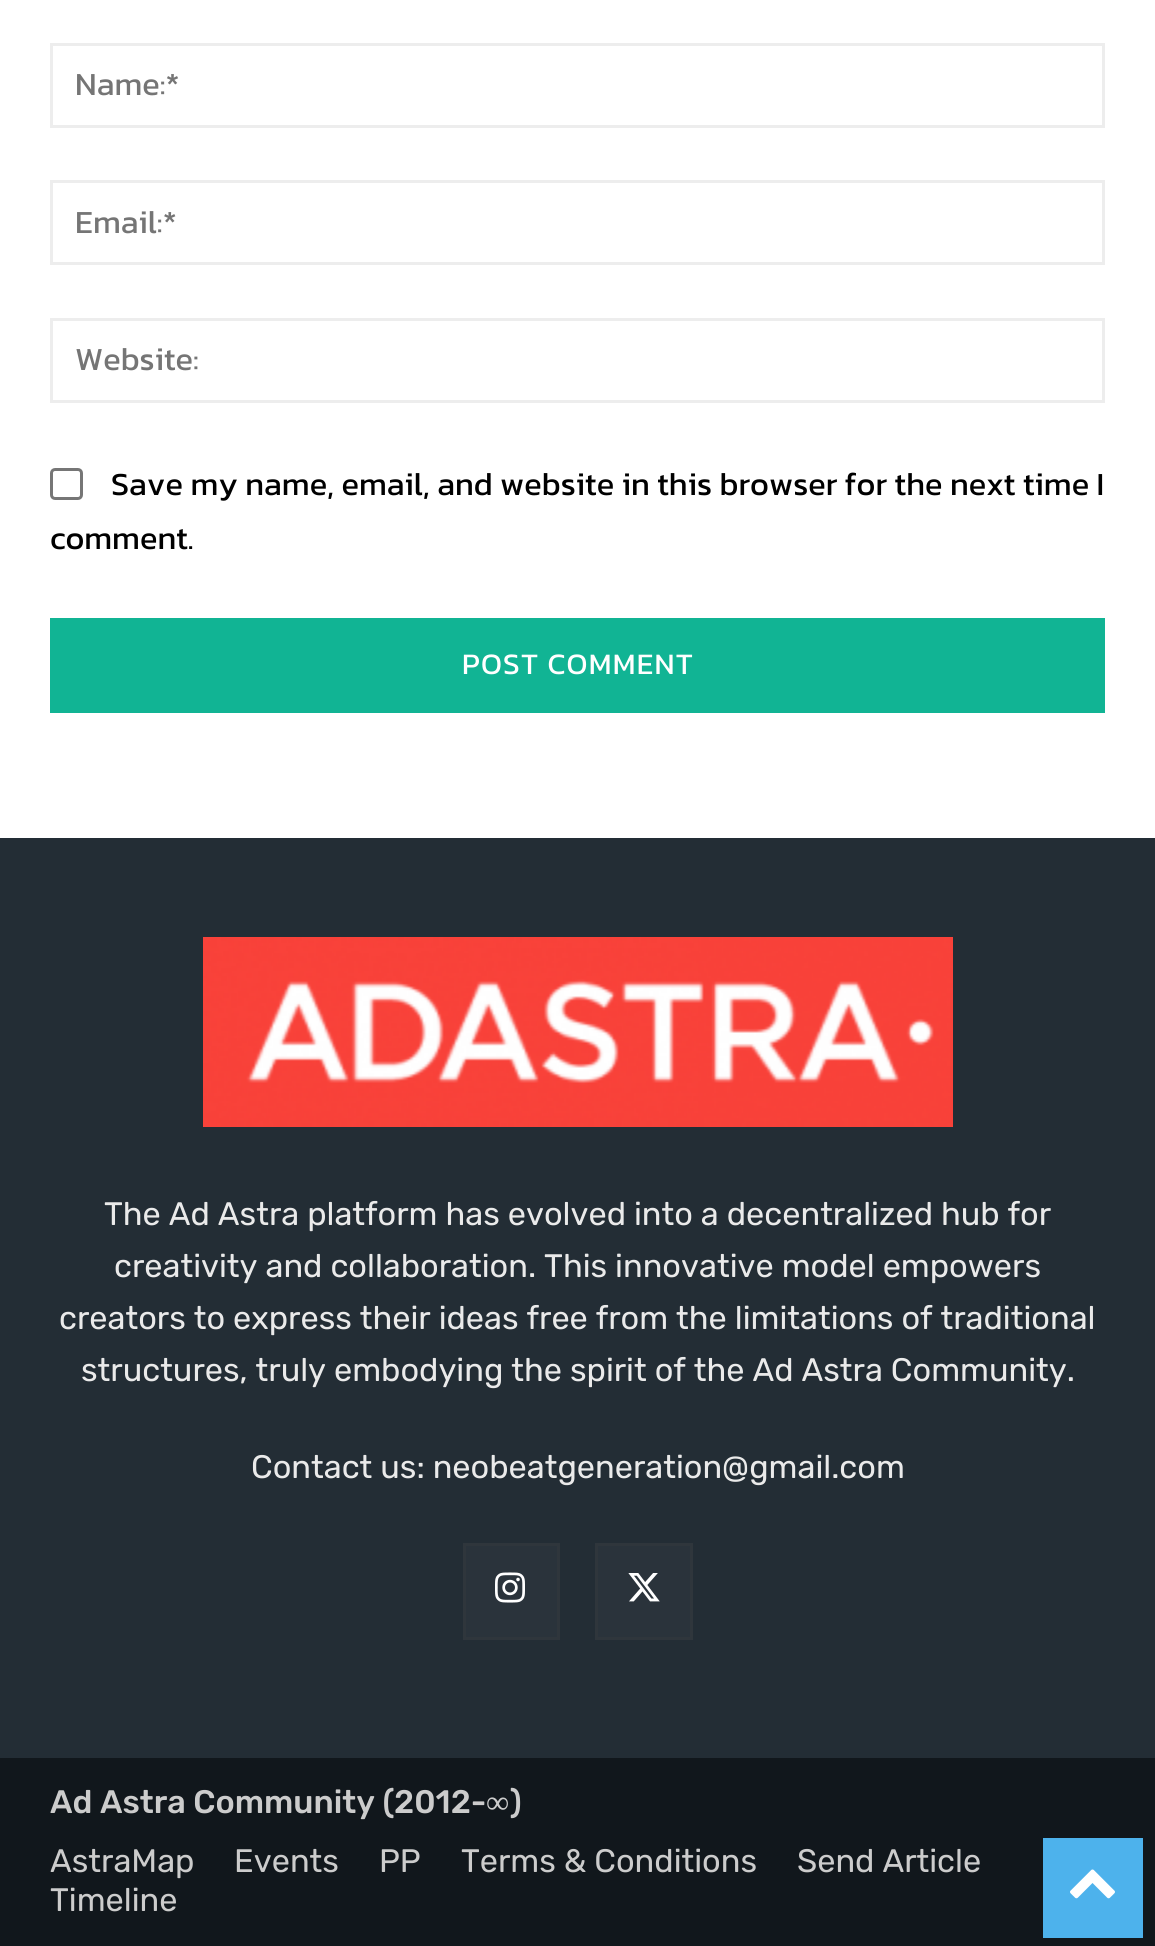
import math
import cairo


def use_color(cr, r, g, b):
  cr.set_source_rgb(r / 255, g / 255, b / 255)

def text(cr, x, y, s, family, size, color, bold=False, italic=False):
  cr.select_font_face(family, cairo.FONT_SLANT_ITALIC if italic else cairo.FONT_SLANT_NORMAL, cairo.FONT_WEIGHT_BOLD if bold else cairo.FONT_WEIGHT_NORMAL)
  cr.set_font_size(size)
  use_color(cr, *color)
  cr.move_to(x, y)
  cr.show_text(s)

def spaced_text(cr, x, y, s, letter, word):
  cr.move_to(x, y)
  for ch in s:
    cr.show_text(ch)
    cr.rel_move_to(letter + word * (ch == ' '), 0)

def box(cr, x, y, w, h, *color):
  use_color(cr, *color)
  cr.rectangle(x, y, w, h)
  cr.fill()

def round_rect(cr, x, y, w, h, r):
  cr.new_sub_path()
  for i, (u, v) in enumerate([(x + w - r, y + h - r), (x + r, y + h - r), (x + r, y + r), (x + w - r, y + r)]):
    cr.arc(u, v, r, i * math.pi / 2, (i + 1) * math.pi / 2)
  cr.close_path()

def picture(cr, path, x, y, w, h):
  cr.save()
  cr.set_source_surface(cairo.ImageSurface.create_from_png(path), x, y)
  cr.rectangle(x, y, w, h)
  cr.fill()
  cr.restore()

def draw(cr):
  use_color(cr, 255, 255, 255)
  cr.paint()
  cr.rectangle(51.5, 44.5, 1052, 82)
  use_color(cr, 237, 237, 237)
  cr.set_line_width(3)
  cr.stroke()
  cr.rectangle(51.5, 181.5, 1052, 82)
  cr.stroke()
  cr.rectangle(51.5, 319.5, 1052, 82)
  cr.stroke()
  round_rect(cr, 51.5, 469.5, 30, 29, 3.5)
  use_color(cr, 118, 118, 118)
  cr.stroke()
  box(cr, 50, 618, 1055, 95, 17, 180, 148)
  box(cr, 0, 838, 1155, 920, 35, 45, 53)
  picture(cr, "img_01.png", 203, 937, 750, 190)
  use_color(cr, 42, 51, 59)
  cr.rectangle(464.5, 1544.5, 94, 94)
  cr.fill_preserve()
  use_color(cr, 47, 54, 60)
  cr.stroke()
  picture(cr, "img_02.png", 495, 1572, 30, 31)
  use_color(cr, 42, 51, 59)
  cr.rectangle(596.5, 1544.5, 95, 94)
  cr.fill_preserve()
  use_color(cr, 47, 54, 60)
  cr.stroke()
  picture(cr, "img_03.png", 628, 1573, 32, 29)
  box(cr, 0, 1758, 1155, 188, 17, 23, 28)
  box(cr, 1043, 1838, 100, 100, 77, 178, 236)
  picture(cr, "img_04.png", 1070, 1869, 45, 30)
  text(cr, 75, 95, "Name:*", "Kanit", 32.5, (117, 117, 117))
  text(cr, 75, 233, "Email:*", "Kanit", 32.5, (117, 117, 117))
  text(cr, 75, 370, "Website:", "Kanit", 32.5, (117, 117, 117))
  text(cr, 111, 495, "Save my name, email, and website in this browser for the next time I", "Kanit", 32.5, (0, 0, 0))
  text(cr, 50, 549, "comment.", "Kanit", 32.5, (0, 0, 0))
  cr.set_font_size(30)
  use_color(cr, 255, 255, 255)
  spaced_text(cr, 462, 674, "POST COMMENT", 1.25, 0)
  text(cr, 104, 1225, "The Ad Astra platform has evolved into a decentralized hub for", "Rubik", 32.5, (234, 234, 234))
  text(cr, 114, 1277, "creativity and collaboration. This innovative model empowers", "Rubik", 32.5, (234, 234, 234))
  text(cr, 59, 1329, "creators to express their ideas free from the limitations of traditional", "Rubik", 32.5, (234, 234, 234))
  text(cr, 81, 1381, "structures, truly embodying the spirit of the Ad Astra Community.", "Rubik", 32.5, (234, 234, 234))
  text(cr, 251, 1478, "Contact us: neobeatgeneration@gmail.com", "Rubik", 32.5, (234, 234, 234))
  text(cr, 50, 1813, "Ad Astra Community (2012-", "Rubik Medium", 32.5, (204, 204, 204))
  text(cr, 486, 1813, "∞", "Liberation Serif", 32.5, (204, 204, 204))
  text(cr, 510, 1813, ")", "Rubik Medium", 32.5, (204, 204, 204))
  text(cr, 50, 1872, "AstraMap", "Rubik", 32.5, (204, 204, 204))
  text(cr, 234, 1872, "Events", "Rubik", 32.5, (204, 204, 204))
  text(cr, 379, 1872, "PP", "Rubik", 32.5, (204, 204, 204))
  text(cr, 461, 1872, "Terms & Conditions", "Rubik", 32.5, (204, 204, 204))
  text(cr, 797, 1872, "Send Article", "Rubik", 32.5, (204, 204, 204))
  text(cr, 50, 1911, "Timeline", "Rubik", 32.5, (204, 204, 204))


surface = cairo.ImageSurface(cairo.FORMAT_RGB24, 1155, 1946)
cr = cairo.Context(surface)
options = cairo.FontOptions()
options.set_hint_metrics(cairo.HINT_METRICS_OFF)
options.set_hint_style(cairo.HINT_STYLE_NONE)
cr.set_font_options(options)
cr.set_miter_limit(4)
draw(cr)
surface.write_to_png("out.png")
